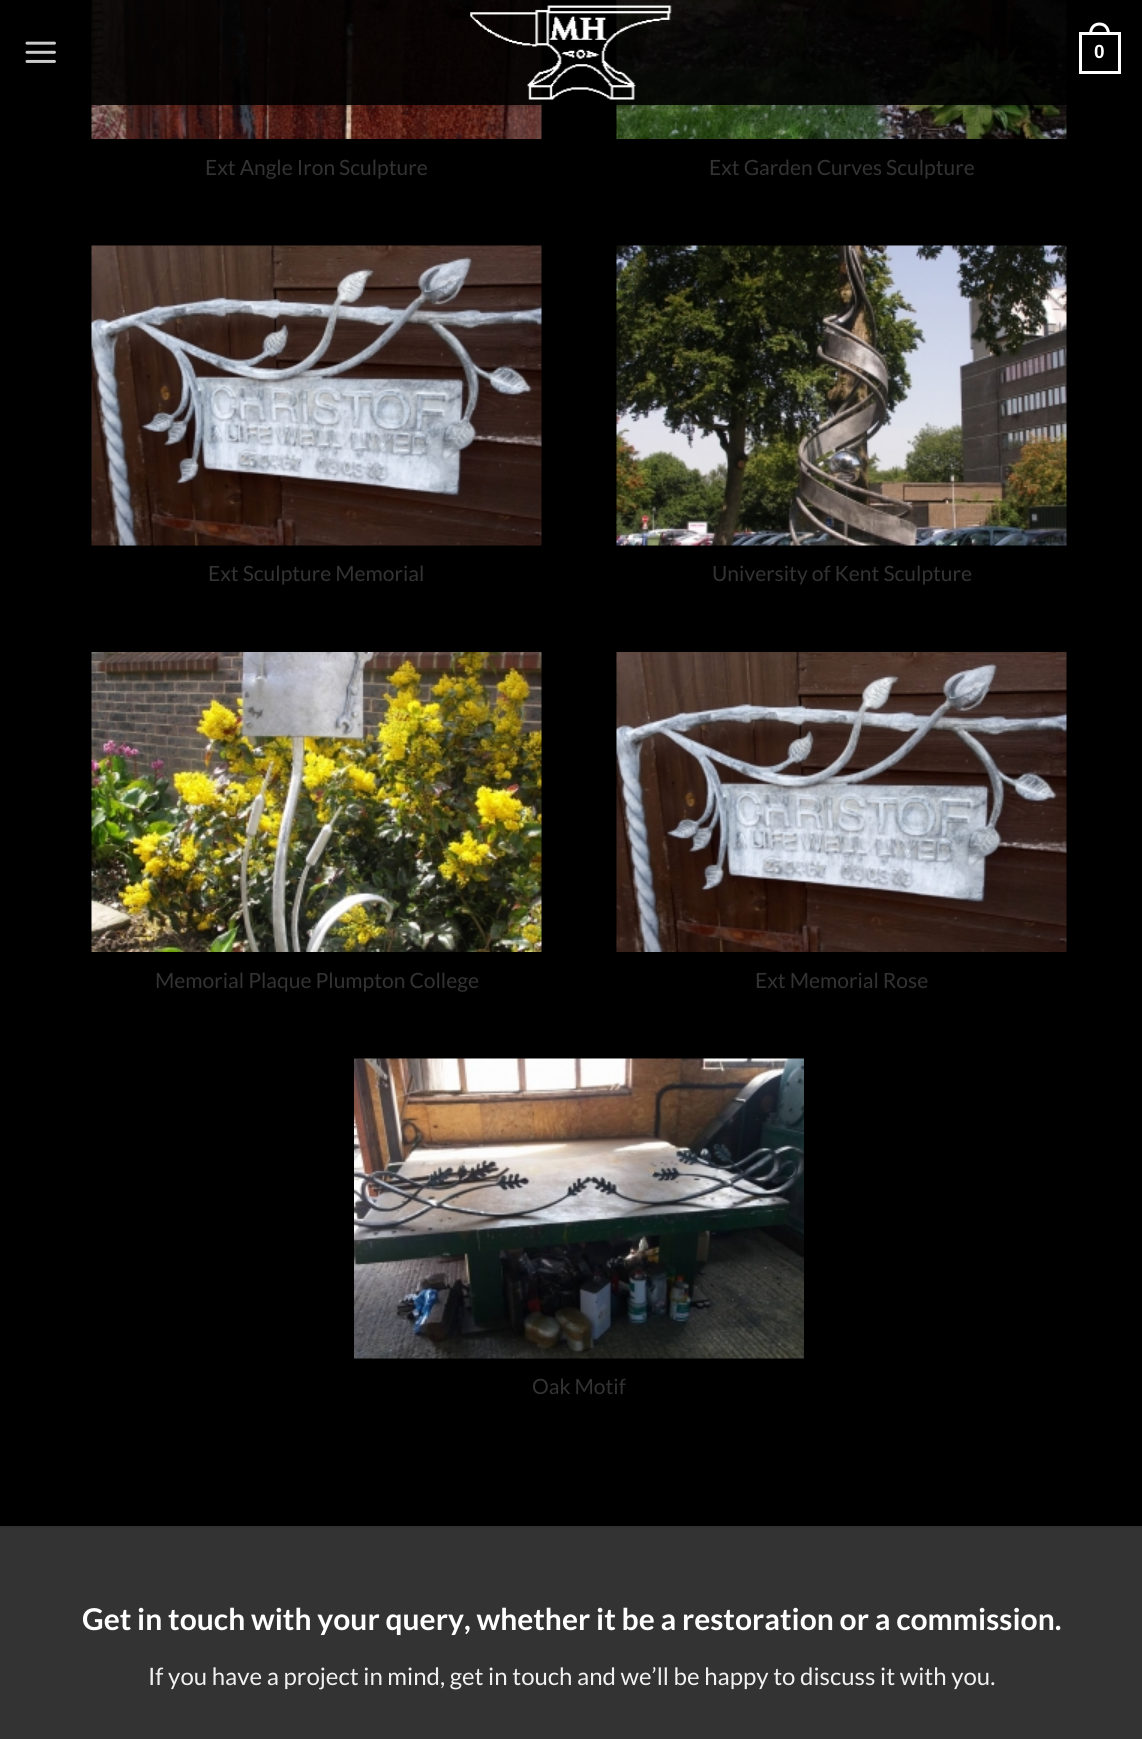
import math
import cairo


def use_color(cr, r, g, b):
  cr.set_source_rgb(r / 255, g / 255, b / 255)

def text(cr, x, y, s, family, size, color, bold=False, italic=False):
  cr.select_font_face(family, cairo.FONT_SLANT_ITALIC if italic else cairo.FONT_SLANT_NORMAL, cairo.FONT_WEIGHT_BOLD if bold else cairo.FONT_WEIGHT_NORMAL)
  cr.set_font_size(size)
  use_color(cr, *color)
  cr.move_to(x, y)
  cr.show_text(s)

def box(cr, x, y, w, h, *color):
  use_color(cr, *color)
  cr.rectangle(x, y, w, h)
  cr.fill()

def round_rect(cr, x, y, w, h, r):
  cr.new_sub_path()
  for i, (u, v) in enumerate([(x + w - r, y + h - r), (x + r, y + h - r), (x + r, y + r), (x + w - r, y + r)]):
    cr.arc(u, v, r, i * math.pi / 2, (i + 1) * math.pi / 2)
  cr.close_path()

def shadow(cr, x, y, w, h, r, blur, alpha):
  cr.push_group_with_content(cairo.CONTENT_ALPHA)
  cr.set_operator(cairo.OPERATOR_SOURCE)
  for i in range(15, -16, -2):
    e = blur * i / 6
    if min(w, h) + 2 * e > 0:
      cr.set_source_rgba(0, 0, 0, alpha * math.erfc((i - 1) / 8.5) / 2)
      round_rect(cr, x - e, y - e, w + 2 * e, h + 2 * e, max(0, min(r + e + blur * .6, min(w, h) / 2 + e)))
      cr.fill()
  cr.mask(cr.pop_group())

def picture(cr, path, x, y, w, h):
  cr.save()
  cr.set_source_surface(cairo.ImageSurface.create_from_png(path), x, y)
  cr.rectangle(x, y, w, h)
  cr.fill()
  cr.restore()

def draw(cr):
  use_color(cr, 0, 0, 0)
  cr.paint()
  picture(cr, "img_03.png", 91, 0, 451, 139)
  picture(cr, "img_04.png", 616, 0, 451, 139)
  cr.save()
  cr.rectangle(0, 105, 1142, 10)
  cr.clip()
  shadow(cr, 2, 2, 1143, 105, 0, 7.5, 0.15)
  cr.restore()
  cr.set_source_rgba(0, 0, 0, 0.9)
  cr.rectangle(91, 0, 976, 105)
  cr.fill()
  picture(cr, "img_01.png", 25, 41, 31, 22)
  picture(cr, "img_02.png", 470, 5, 202, 95)
  cr.rectangle(1080.5, 33.5, 39, 39)
  use_color(cr, 255, 255, 255)
  cr.set_line_width(3)
  cr.stroke()
  cr.set_fill_rule(cairo.FILL_RULE_EVEN_ODD)
  cr.new_path()
  cr.move_to(1099.5, 22.5)
  cr.curve_to(1106.5, 22.5, 1110, 28, 1110, 34.5)
  cr.line_to(1089, 34.5)
  cr.curve_to(1089, 28, 1092.5, 22.5, 1099.5, 22.5)
  cr.close_path()
  cr.move_to(1099.5, 25.5)
  cr.curve_to(1105, 25.5, 1107, 30, 1107, 34.5)
  cr.line_to(1092, 34.5)
  cr.curve_to(1092, 30, 1094, 25.5, 1099.5, 25.5)
  cr.close_path()
  cr.fill()
  picture(cr, "img_05.png", 91, 245, 451, 301)
  picture(cr, "img_06.png", 616, 245, 451, 301)
  picture(cr, "img_07.png", 91, 652, 451, 300)
  picture(cr, "img_08.png", 616, 652, 451, 300)
  picture(cr, "img_09.png", 354, 1058, 450, 301)
  box(cr, 0, 1528, 1142, 211, 51, 51, 51)
  box(cr, 0, 1526, 1142, 2, 48, 48, 48)
  text(cr, 1094, 58, "0", "Liberation Sans", 19, (255, 255, 255), bold=True)
  text(cr, 205, 175, "Ext Angle Iron Sculpture", "Lato", 21, (51, 51, 51))
  text(cr, 709, 175, "Ext Garden Curves Sculpture", "Lato", 21, (51, 51, 51))
  text(cr, 208, 581, "Ext Sculpture Memorial", "Lato", 21, (51, 51, 51))
  text(cr, 712, 581, "University of Kent Sculpture", "Lato", 21, (51, 51, 51))
  text(cr, 155, 988, "Memorial Plaque Plumpton College", "Lato", 21, (51, 51, 51))
  text(cr, 755, 988, "Ext Memorial Rose", "Lato", 21, (51, 51, 51))
  text(cr, 532, 1394, "Oak Motif", "Lato", 21, (51, 51, 51))
  text(cr, 82, 1630, "Get in touch with your query, whether it be a restoration or a commission.", "Lato", 30, (255, 255, 255), bold=True)
  text(cr, 148, 1685, "If you have a project in mind, get in touch and we’ll be happy to discuss it with you.", "Lato", 24, (241, 241, 241))


surface = cairo.ImageSurface(cairo.FORMAT_RGB24, 1142, 1739)
cr = cairo.Context(surface)
options = cairo.FontOptions()
options.set_hint_metrics(cairo.HINT_METRICS_OFF)
options.set_hint_style(cairo.HINT_STYLE_NONE)
cr.set_font_options(options)
cr.set_miter_limit(4)
draw(cr)
surface.write_to_png("out.png")
